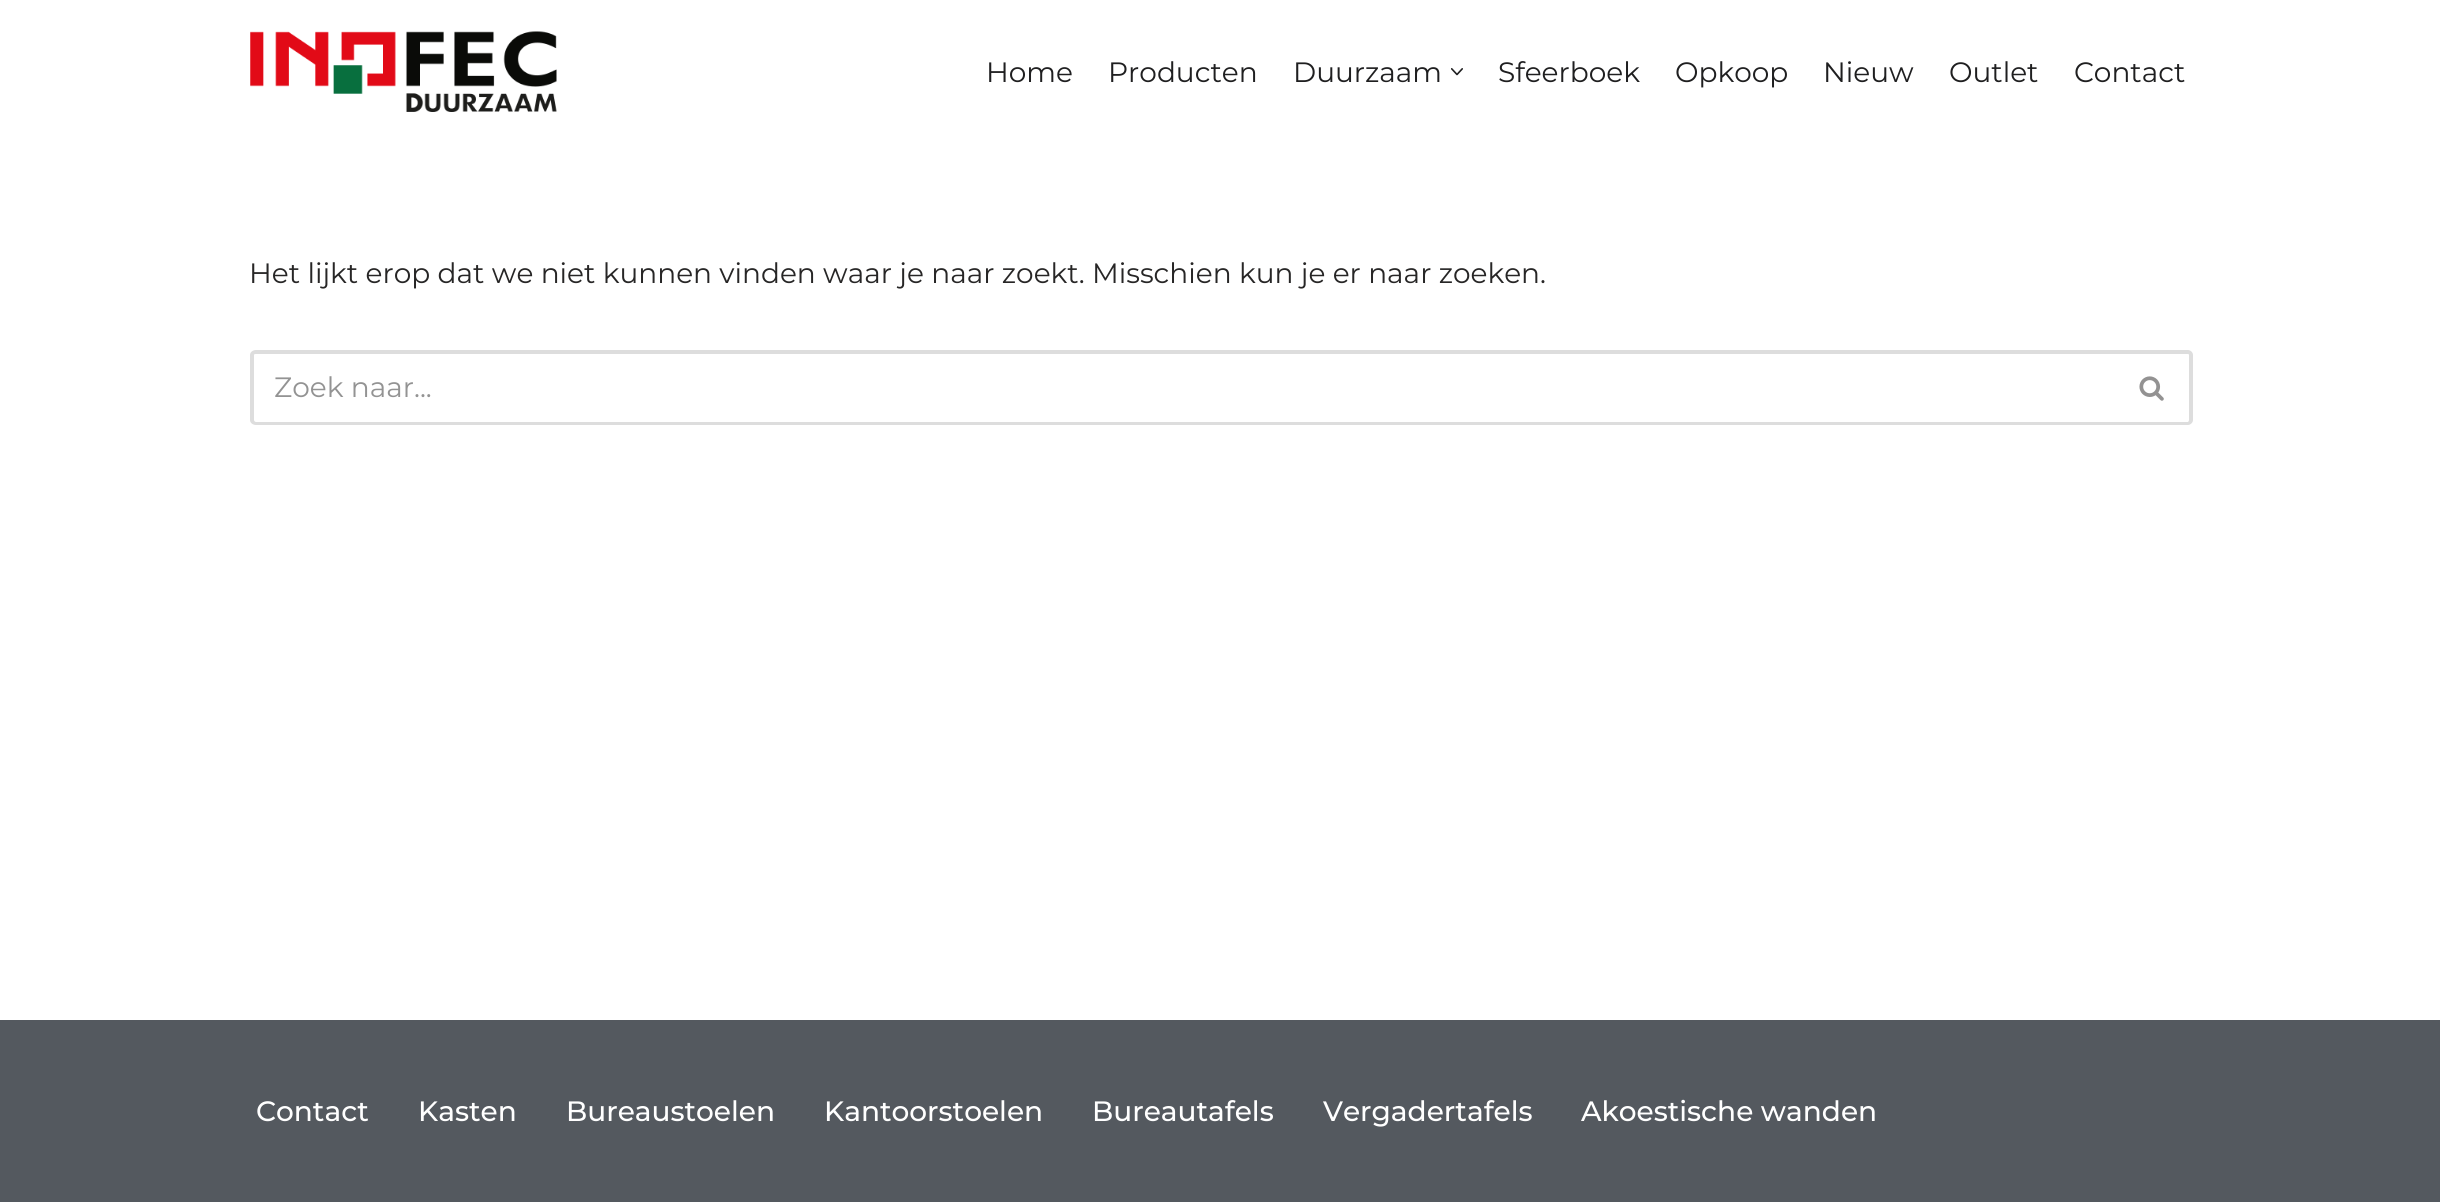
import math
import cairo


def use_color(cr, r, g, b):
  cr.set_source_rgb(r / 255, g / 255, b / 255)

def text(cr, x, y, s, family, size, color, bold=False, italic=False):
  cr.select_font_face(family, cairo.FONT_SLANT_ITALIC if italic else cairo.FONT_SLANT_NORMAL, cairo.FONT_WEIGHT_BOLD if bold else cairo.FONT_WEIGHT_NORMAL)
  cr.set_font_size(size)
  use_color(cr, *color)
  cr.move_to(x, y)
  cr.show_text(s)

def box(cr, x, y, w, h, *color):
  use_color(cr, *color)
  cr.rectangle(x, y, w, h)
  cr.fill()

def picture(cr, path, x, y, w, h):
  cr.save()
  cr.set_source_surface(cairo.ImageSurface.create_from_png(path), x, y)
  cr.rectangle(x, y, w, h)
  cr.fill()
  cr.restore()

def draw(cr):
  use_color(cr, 255, 255, 255)
  cr.paint()
  picture(cr, "img_01.png", 250, 31, 307, 81)
  picture(cr, "img_02.png", 1451, 68, 12, 8)
  use_color(cr, 221, 221, 221)
  cr.set_fill_rule(cairo.FILL_RULE_EVEN_ODD)
  cr.new_path()
  cr.move_to(256, 350)
  cr.line_to(2114, 350)
  cr.line_to(2114, 425)
  cr.line_to(256, 425)
  cr.curve_to(253, 425, 250, 423, 250, 420)
  cr.line_to(250, 355)
  cr.curve_to(250, 352, 253, 350, 256, 350)
  cr.close_path()
  cr.move_to(256, 354)
  cr.line_to(2114, 354)
  cr.line_to(2114, 422)
  cr.line_to(256, 422)
  cr.curve_to(255, 422, 254, 421, 254, 420)
  cr.line_to(254, 355)
  cr.curve_to(254, 354, 255, 354, 256, 354)
  cr.close_path()
  cr.fill()
  cr.new_path()
  cr.move_to(2114, 350)
  cr.line_to(2188, 350)
  cr.curve_to(2190, 350, 2193, 352, 2193, 355)
  cr.line_to(2193, 420)
  cr.curve_to(2193, 423, 2190, 425, 2188, 425)
  cr.line_to(2114, 425)
  cr.close_path()
  cr.move_to(2114, 354)
  cr.line_to(2188, 354)
  cr.curve_to(2188, 354, 2189, 354, 2189, 355)
  cr.line_to(2189, 420)
  cr.curve_to(2189, 421, 2188, 422, 2188, 422)
  cr.line_to(2114, 422)
  cr.close_path()
  cr.fill()
  picture(cr, "img_03.png", 2139, 376, 25, 25)
  box(cr, 0, 1020, 2440, 182, 84, 89, 95)
  text(cr, 986, 82, "Home", "Montserrat", 28, (31, 31, 32))
  text(cr, 1108, 82, "Producten", "Montserrat", 28, (31, 31, 32))
  text(cr, 1293, 82, "Duurzaam", "Montserrat", 28, (31, 31, 32))
  text(cr, 1498, 82, "Sfeerboek", "Montserrat", 28, (31, 31, 32))
  text(cr, 1675, 82, "Opkoop", "Montserrat", 28, (31, 31, 32))
  text(cr, 1823, 82, "Nieuw", "Montserrat", 28, (31, 31, 32))
  text(cr, 1949, 82, "Outlet", "Montserrat", 28, (31, 31, 32))
  text(cr, 2074, 82, "Contact", "Montserrat", 28, (31, 31, 32))
  text(cr, 249, 283, "Het lijkt erop dat we niet kunnen vinden waar je naar zoekt. Misschien kun je er naar zoeken.", "Montserrat", 28, (39, 38, 38))
  text(cr, 274, 397, "Zoek naar...", "Montserrat", 28, (147, 147, 147))
  text(cr, 256, 1121, "Contact", "Montserrat Medium", 28, (255, 255, 255))
  text(cr, 418, 1121, "Kasten", "Montserrat Medium", 28, (255, 255, 255))
  text(cr, 566, 1121, "Bureaustoelen", "Montserrat Medium", 28, (255, 255, 255))
  text(cr, 824, 1121, "Kantoorstoelen", "Montserrat Medium", 28, (255, 255, 255))
  text(cr, 1092, 1121, "Bureautafels", "Montserrat Medium", 28, (255, 255, 255))
  text(cr, 1323, 1121, "Vergadertafels", "Montserrat Medium", 28, (255, 255, 255))
  text(cr, 1581, 1121, "Akoestische wanden", "Montserrat Medium", 28, (255, 255, 255))


surface = cairo.ImageSurface(cairo.FORMAT_RGB24, 2440, 1202)
cr = cairo.Context(surface)
options = cairo.FontOptions()
options.set_hint_metrics(cairo.HINT_METRICS_OFF)
options.set_hint_style(cairo.HINT_STYLE_NONE)
cr.set_font_options(options)
cr.set_miter_limit(4)
draw(cr)
surface.write_to_png("out.png")
